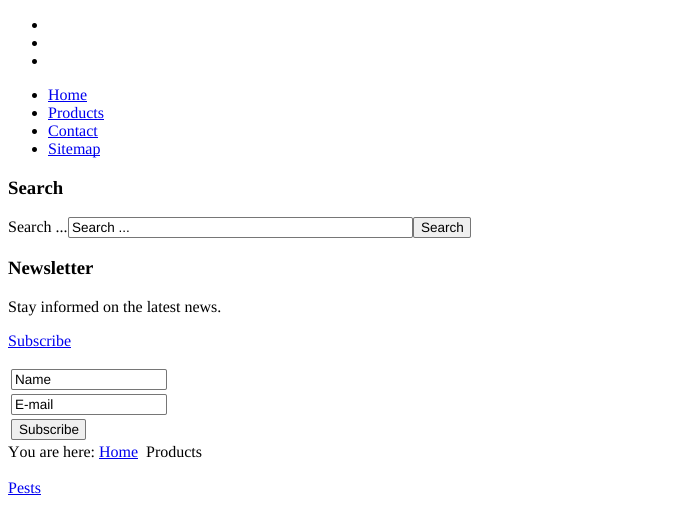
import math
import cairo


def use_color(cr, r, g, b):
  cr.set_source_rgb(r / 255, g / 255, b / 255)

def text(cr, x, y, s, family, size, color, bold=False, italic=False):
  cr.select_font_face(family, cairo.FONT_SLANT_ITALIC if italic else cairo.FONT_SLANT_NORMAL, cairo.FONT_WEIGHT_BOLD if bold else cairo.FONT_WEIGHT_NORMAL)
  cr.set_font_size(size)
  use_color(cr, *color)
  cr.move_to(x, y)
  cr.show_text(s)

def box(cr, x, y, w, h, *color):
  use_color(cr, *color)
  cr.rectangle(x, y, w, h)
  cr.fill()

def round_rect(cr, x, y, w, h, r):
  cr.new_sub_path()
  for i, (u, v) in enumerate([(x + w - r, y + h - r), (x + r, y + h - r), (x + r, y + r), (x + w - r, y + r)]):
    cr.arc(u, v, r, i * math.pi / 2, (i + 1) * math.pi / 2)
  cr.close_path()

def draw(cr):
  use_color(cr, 255, 255, 255)
  cr.paint()
  use_color(cr, 0, 0, 0)
  cr.arc(34.5, 25.5, 2.5, 0, 2 * math.pi)
  cr.fill()
  cr.arc(34.5, 43.5, 2.5, 0, 2 * math.pi)
  cr.fill()
  cr.arc(34.5, 61.5, 2.5, 0, 2 * math.pi)
  cr.fill()
  cr.arc(34.5, 95.5, 2.5, 0, 2 * math.pi)
  cr.fill()
  box(cr, 48, 101, 39, 1, 0, 0, 238)
  use_color(cr, 0, 0, 0)
  cr.arc(34.5, 113.5, 2.5, 0, 2 * math.pi)
  cr.fill()
  box(cr, 48, 119, 56, 1, 0, 0, 238)
  use_color(cr, 0, 0, 0)
  cr.arc(34.5, 131.5, 2.5, 0, 2 * math.pi)
  cr.fill()
  box(cr, 48, 137, 50, 1, 0, 0, 238)
  use_color(cr, 0, 0, 0)
  cr.arc(34.5, 149.5, 2.5, 0, 2 * math.pi)
  cr.fill()
  box(cr, 48, 155, 52, 1, 0, 0, 238)
  round_rect(cr, 68.5, 217.5, 344, 20, 1.5)
  use_color(cr, 118, 118, 118)
  cr.set_line_width(1)
  cr.stroke()
  use_color(cr, 239, 239, 239)
  round_rect(cr, 413.5, 217.5, 57, 20, 1.5)
  cr.fill_preserve()
  use_color(cr, 118, 118, 118)
  cr.stroke()
  box(cr, 8, 347, 63, 1, 0, 0, 238)
  round_rect(cr, 11.5, 369.5, 155, 20, 1.5)
  use_color(cr, 118, 118, 118)
  cr.stroke()
  round_rect(cr, 11.5, 394.5, 155, 20, 1.5)
  cr.stroke()
  use_color(cr, 239, 239, 239)
  round_rect(cr, 11.5, 419.5, 74, 20, 1.5)
  cr.fill_preserve()
  use_color(cr, 118, 118, 118)
  cr.stroke()
  box(cr, 99, 458, 39, 1, 0, 0, 238)
  box(cr, 8, 494, 33, 1, 0, 0, 238)
  text(cr, 48, 100, "Home", "Liberation Serif", 16, (0, 0, 238))
  text(cr, 48, 118, "Products", "Liberation Serif", 16, (0, 0, 238))
  text(cr, 48, 136, "Contact", "Liberation Serif", 16, (0, 0, 238))
  text(cr, 48, 154, "Sitemap", "Liberation Serif", 16, (0, 0, 238))
  text(cr, 8, 194, "Search", "Liberation Serif", 18.75, (0, 0, 0), bold=True)
  text(cr, 8, 232, "Search ...", "Liberation Serif", 16, (0, 0, 0))
  text(cr, 72, 232, "Search ...", "Liberation Sans", 13.5, (0, 0, 0))
  text(cr, 421, 232, "Search", "Liberation Sans", 13.5, (0, 0, 0))
  text(cr, 8, 274, "Newsletter", "Liberation Serif", 18.75, (0, 0, 0), bold=True)
  text(cr, 8, 312, "Stay informed on the latest news.", "Liberation Serif", 16, (0, 0, 0))
  text(cr, 8, 346, "Subscribe", "Liberation Serif", 16, (0, 0, 238))
  text(cr, 15, 384, "Name", "Liberation Sans", 13.5, (0, 0, 0))
  text(cr, 15, 409, "E-mail", "Liberation Sans", 13.5, (0, 0, 0))
  text(cr, 19, 434, "Subscribe", "Liberation Sans", 13.5, (0, 0, 0))
  text(cr, 8, 457, "You are here:", "Liberation Serif", 16, (0, 0, 0))
  text(cr, 99, 457, "Home", "Liberation Serif", 16, (0, 0, 238))
  text(cr, 146, 457, "Products", "Liberation Serif", 16, (0, 0, 0))
  text(cr, 8, 493, "Pests", "Liberation Serif", 16, (0, 0, 238))


surface = cairo.ImageSurface(cairo.FORMAT_RGB24, 683, 507)
cr = cairo.Context(surface)
options = cairo.FontOptions()
options.set_hint_metrics(cairo.HINT_METRICS_OFF)
options.set_hint_style(cairo.HINT_STYLE_NONE)
cr.set_font_options(options)
cr.set_miter_limit(4)
draw(cr)
surface.write_to_png("out.png")
